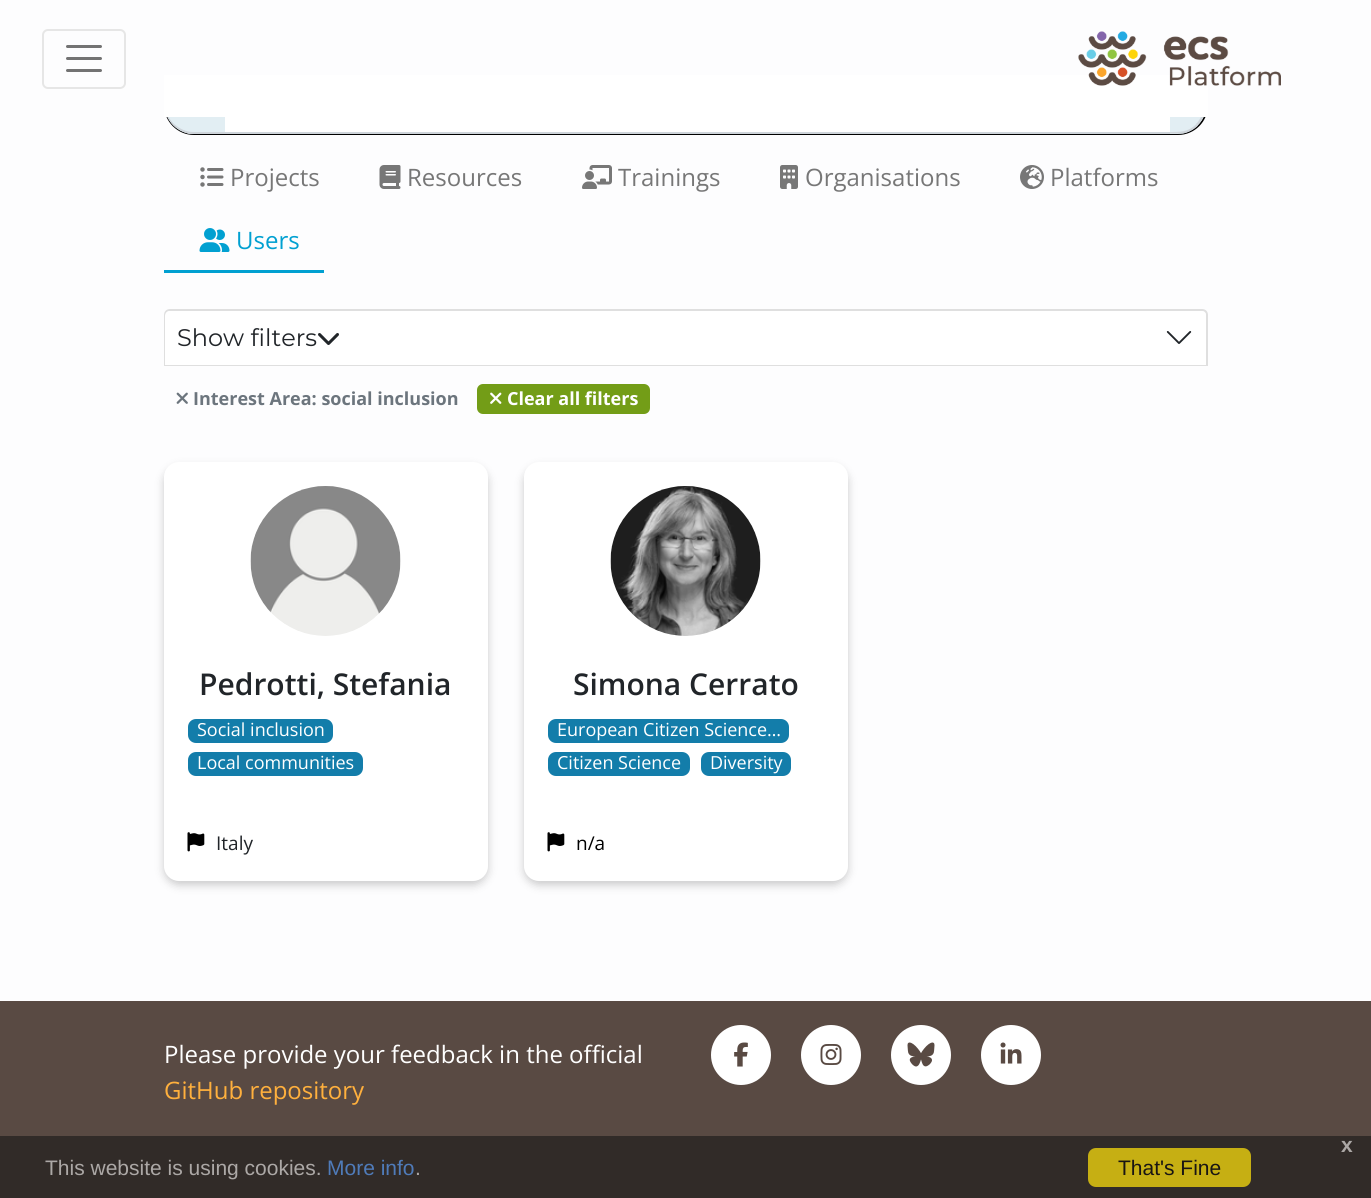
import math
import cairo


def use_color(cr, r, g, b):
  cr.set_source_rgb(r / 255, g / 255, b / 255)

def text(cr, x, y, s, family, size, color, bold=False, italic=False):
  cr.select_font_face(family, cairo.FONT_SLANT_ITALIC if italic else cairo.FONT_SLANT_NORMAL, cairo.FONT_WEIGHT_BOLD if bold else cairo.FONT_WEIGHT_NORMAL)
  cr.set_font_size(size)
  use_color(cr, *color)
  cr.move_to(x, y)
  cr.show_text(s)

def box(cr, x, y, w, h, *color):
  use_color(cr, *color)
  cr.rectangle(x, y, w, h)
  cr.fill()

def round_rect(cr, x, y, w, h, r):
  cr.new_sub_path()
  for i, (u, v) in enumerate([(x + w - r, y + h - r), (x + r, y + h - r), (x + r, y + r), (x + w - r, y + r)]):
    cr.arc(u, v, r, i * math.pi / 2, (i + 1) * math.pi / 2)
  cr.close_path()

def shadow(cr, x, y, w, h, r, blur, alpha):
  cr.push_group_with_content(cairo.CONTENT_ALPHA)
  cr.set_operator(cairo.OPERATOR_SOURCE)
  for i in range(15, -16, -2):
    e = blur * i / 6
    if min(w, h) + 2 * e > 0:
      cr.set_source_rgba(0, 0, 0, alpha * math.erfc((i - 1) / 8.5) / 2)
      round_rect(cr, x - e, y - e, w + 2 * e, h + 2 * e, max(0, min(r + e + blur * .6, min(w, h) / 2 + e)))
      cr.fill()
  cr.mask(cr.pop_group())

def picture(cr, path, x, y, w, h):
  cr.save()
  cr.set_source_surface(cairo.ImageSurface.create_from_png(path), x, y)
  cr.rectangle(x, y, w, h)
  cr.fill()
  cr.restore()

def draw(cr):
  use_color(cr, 253, 253, 254)
  cr.paint()
  round_rect(cr, 165, 76, 1042, 58, 29)
  use_color(cr, 0, 0, 0)
  cr.stroke()
  use_color(cr, 226, 238, 243)
  cr.new_path()
  cr.move_to(193.5, 77)
  cr.line_to(227, 77)
  cr.line_to(227, 134)
  cr.line_to(193.5, 134)
  cr.curve_to(178, 134, 165, 121, 165, 105.5)
  cr.curve_to(165, 90, 178, 77, 193.5, 77)
  cr.close_path()
  cr.fill()
  use_color(cr, 206, 212, 218)
  cr.new_path()
  cr.move_to(189, 134)
  cr.curve_to(183, 132, 177, 129, 173, 125)
  cr.line_to(174, 124)
  cr.curve_to(180, 129, 186, 132, 194, 132)
  cr.line_to(226, 132)
  cr.line_to(226, 134)
  cr.close_path()
  cr.fill()
  cr.new_path()
  cr.move_to(173, 125)
  cr.curve_to(162, 114, 162, 96, 173, 85)
  cr.line_to(174, 86)
  cr.curve_to(163, 96, 163, 114, 174, 124)
  cr.close_path()
  cr.fill()
  use_color(cr, 226, 238, 243)
  cr.new_path()
  cr.move_to(1169, 77)
  cr.line_to(1177.5, 77)
  cr.curve_to(1193, 77, 1206, 90, 1206, 105.5)
  cr.curve_to(1206, 121, 1193, 134, 1177.5, 134)
  cr.line_to(1169, 134)
  cr.close_path()
  cr.fill()
  use_color(cr, 206, 212, 218)
  cr.new_path()
  cr.move_to(1196, 124)
  cr.curve_to(1206, 114, 1206, 96, 1196, 86)
  cr.line_to(1198, 85)
  cr.curve_to(1209, 96, 1209, 114, 1198, 125)
  cr.close_path()
  cr.fill()
  box(cr, 164, 75, 1044, 42, 255, 255, 255)
  round_rect(cr, 43, 30, 82, 58, 5)
  use_color(cr, 230, 230, 230)
  cr.stroke()
  cr.new_path()
  cr.move_to(67.5, 46.5)
  cr.line_to(100.5, 46.5)
  cr.move_to(67.5, 58.5)
  cr.line_to(100.5, 58.5)
  cr.move_to(67.5, 70.5)
  cr.line_to(100.5, 70.5)
  use_color(cr, 115, 115, 115)
  cr.set_line_width(3)
  cr.set_line_cap(cairo.LINE_CAP_ROUND)
  cr.stroke()
  picture(cr, "img_01.png", 1078, 31, 203, 55)
  use_color(cr, 206, 212, 218)
  cr.new_path()
  cr.move_to(1168.5, 132)
  cr.curve_to(1179.5, 132, 1188, 132.5, 1196.5, 124)
  cr.line_to(1198, 125.5)
  cr.curve_to(1194, 129.5, 1188.5, 132.5, 1183, 133.5)
  cr.line_to(1168.5, 133.5)
  cr.close_path()
  cr.fill()
  box(cr, 225, 117, 945, 15, 255, 255, 255)
  box(cr, 225, 132, 945, 2, 206, 212, 218)
  picture(cr, "img_02.png", 200, 167, 24, 20)
  picture(cr, "img_03.png", 379, 165, 22, 24)
  picture(cr, "img_04.png", 582, 165, 30, 24)
  picture(cr, "img_05.png", 780, 165, 18, 24)
  picture(cr, "img_06.png", 1020, 165, 24, 24)
  box(cr, 164, 270, 160, 3, 1, 160, 209)
  picture(cr, "img_07.png", 199, 228, 31, 24)
  cr.new_path()
  cr.move_to(170, 310)
  cr.line_to(1202, 310)
  cr.curve_to(1205, 310, 1207, 312, 1207, 315)
  cr.line_to(1207, 365)
  cr.line_to(165, 365)
  cr.line_to(165, 315)
  cr.curve_to(165, 312, 167, 310, 170, 310)
  cr.close_path()
  use_color(cr, 223, 223, 223)
  cr.set_line_width(2)
  cr.set_line_cap(cairo.LINE_CAP_BUTT)
  cr.stroke()
  use_color(cr, 255, 255, 255)
  cr.new_path()
  cr.move_to(170, 311)
  cr.line_to(1201, 311)
  cr.curve_to(1204, 311, 1206, 313, 1206, 316)
  cr.line_to(1206, 365)
  cr.line_to(165, 365)
  cr.line_to(165, 316)
  cr.curve_to(165, 313, 167, 311, 170, 311)
  cr.close_path()
  cr.fill()
  picture(cr, "img_08.png", 318, 333, 21, 12)
  picture(cr, "img_09.png", 1166, 331, 26, 13)
  picture(cr, "img_10.png", 176, 392, 12, 12)
  use_color(cr, 115, 157, 23)
  round_rect(cr, 477, 384, 173, 30, 6)
  cr.fill()
  picture(cr, "img_11.png", 490, 392, 12, 12)
  use_color(cr, 0, 0, 0)
  shadow(cr, 164, 467, 324, 418, 15, 4.5, 0.2)
  use_color(cr, 255, 255, 255)
  round_rect(cr, 164, 462, 324, 419, 15)
  cr.fill()
  picture(cr, "img_12.png", 250, 486, 151, 150)
  use_color(cr, 19, 125, 170)
  round_rect(cr, 188, 719, 145, 24, 8)
  cr.fill()
  round_rect(cr, 188, 752, 175, 24, 8)
  cr.fill()
  picture(cr, "img_13.png", 187, 832, 18, 20)
  use_color(cr, 0, 0, 0)
  shadow(cr, 524, 467, 324, 418, 15, 4.5, 0.2)
  use_color(cr, 255, 255, 255)
  round_rect(cr, 524, 462, 324, 419, 15)
  cr.fill()
  picture(cr, "img_14.png", 610, 486, 151, 150)
  use_color(cr, 19, 125, 170)
  round_rect(cr, 548, 719, 241, 24, 8)
  cr.fill()
  round_rect(cr, 548, 752, 142, 24, 8)
  cr.fill()
  round_rect(cr, 701, 752, 90, 24, 8)
  cr.fill()
  picture(cr, "img_13.png", 547, 832, 18, 20)
  box(cr, 0, 1001, 1371, 135, 89, 74, 67)
  use_color(cr, 255, 255, 255)
  cr.arc(741, 1055, 30, 0, 2 * math.pi)
  cr.fill()
  picture(cr, "img_15.png", 734, 1042, 14, 25)
  cr.arc(831, 1055, 30, 0, 2 * math.pi)
  cr.fill()
  picture(cr, "img_16.png", 820, 1044, 22, 21)
  cr.arc(921, 1055, 30, 0, 2 * math.pi)
  cr.fill()
  picture(cr, "img_17.png", 907, 1042, 28, 25)
  cr.arc(1011, 1055, 30, 0, 2 * math.pi)
  cr.fill()
  picture(cr, "img_18.png", 1000, 1042, 22, 22)
  box(cr, 0, 1136, 1371, 62, 49, 43, 40)
  use_color(cr, 198, 175, 19)
  round_rect(cr, 1088, 1148, 163, 39, 8)
  cr.fill()
  text(cr, 230, 186, "Projects", "Open Sans", 24, (119, 119, 119))
  text(cr, 407, 186, "Resources", "Open Sans", 24, (119, 119, 119))
  text(cr, 618, 186, "Trainings", "Open Sans", 24, (119, 119, 119))
  text(cr, 805, 186, "Organisations", "Open Sans", 24, (119, 119, 119))
  text(cr, 1050, 186, "Platforms", "Open Sans", 24, (119, 119, 119))
  text(cr, 236, 249, "Users", "Open Sans", 24, (1, 160, 209))
  text(cr, 177, 346, "Show filters", "Montserrat", 24, (33, 37, 41))
  text(cr, 193, 405, "Interest Area: social inclusion", "Open Sans", 18, (108, 117, 125), bold=True)
  text(cr, 507, 405, "Clear all filters", "Open Sans", 18, (255, 255, 255), bold=True)
  text(cr, 199, 695, "Pedrotti, Stefania", "Open Sans SemiBold", 30, (33, 37, 41))
  text(cr, 197, 736, "Social inclusion", "Open Sans", 18, (255, 255, 255))
  text(cr, 197, 769, "Local communities", "Open Sans", 18, (255, 255, 255))
  text(cr, 216, 850, "Italy", "Open Sans", 19, (33, 37, 41))
  text(cr, 573, 695, "Simona Cerrato", "Open Sans SemiBold", 30, (33, 37, 41))
  text(cr, 557, 736, "European Citizen Science…", "Open Sans", 18, (255, 255, 255))
  text(cr, 557, 769, "Citizen Science", "Open Sans", 18, (255, 255, 255))
  text(cr, 710, 769, "Diversity", "Open Sans", 18, (255, 255, 255))
  text(cr, 576, 850, "n/a", "Open Sans", 19, (0, 0, 0))
  text(cr, 164, 1063, "Please provide your feedback in the official", "Open Sans", 24, (255, 255, 255))
  text(cr, 164, 1099, "GitHub repository", "Open Sans", 24, (255, 176, 61))
  text(cr, 1341, 1152, "x", "Liberation Sans", 21, (172, 168, 166), bold=True)
  text(cr, 45, 1175, "This website is using cookies.", "Liberation Sans", 21, (172, 168, 166))
  text(cr, 327, 1175, "More info", "Liberation Sans", 21, (79, 123, 185))
  text(cr, 415, 1175, ".", "Liberation Sans", 21, (172, 168, 166))
  text(cr, 1118, 1175, "That's Fine", "Liberation Sans", 21, (25, 21, 19))


surface = cairo.ImageSurface(cairo.FORMAT_RGB24, 1371, 1198)
cr = cairo.Context(surface)
options = cairo.FontOptions()
options.set_hint_metrics(cairo.HINT_METRICS_OFF)
options.set_hint_style(cairo.HINT_STYLE_NONE)
cr.set_font_options(options)
cr.set_miter_limit(4)
draw(cr)
surface.write_to_png("out.png")
